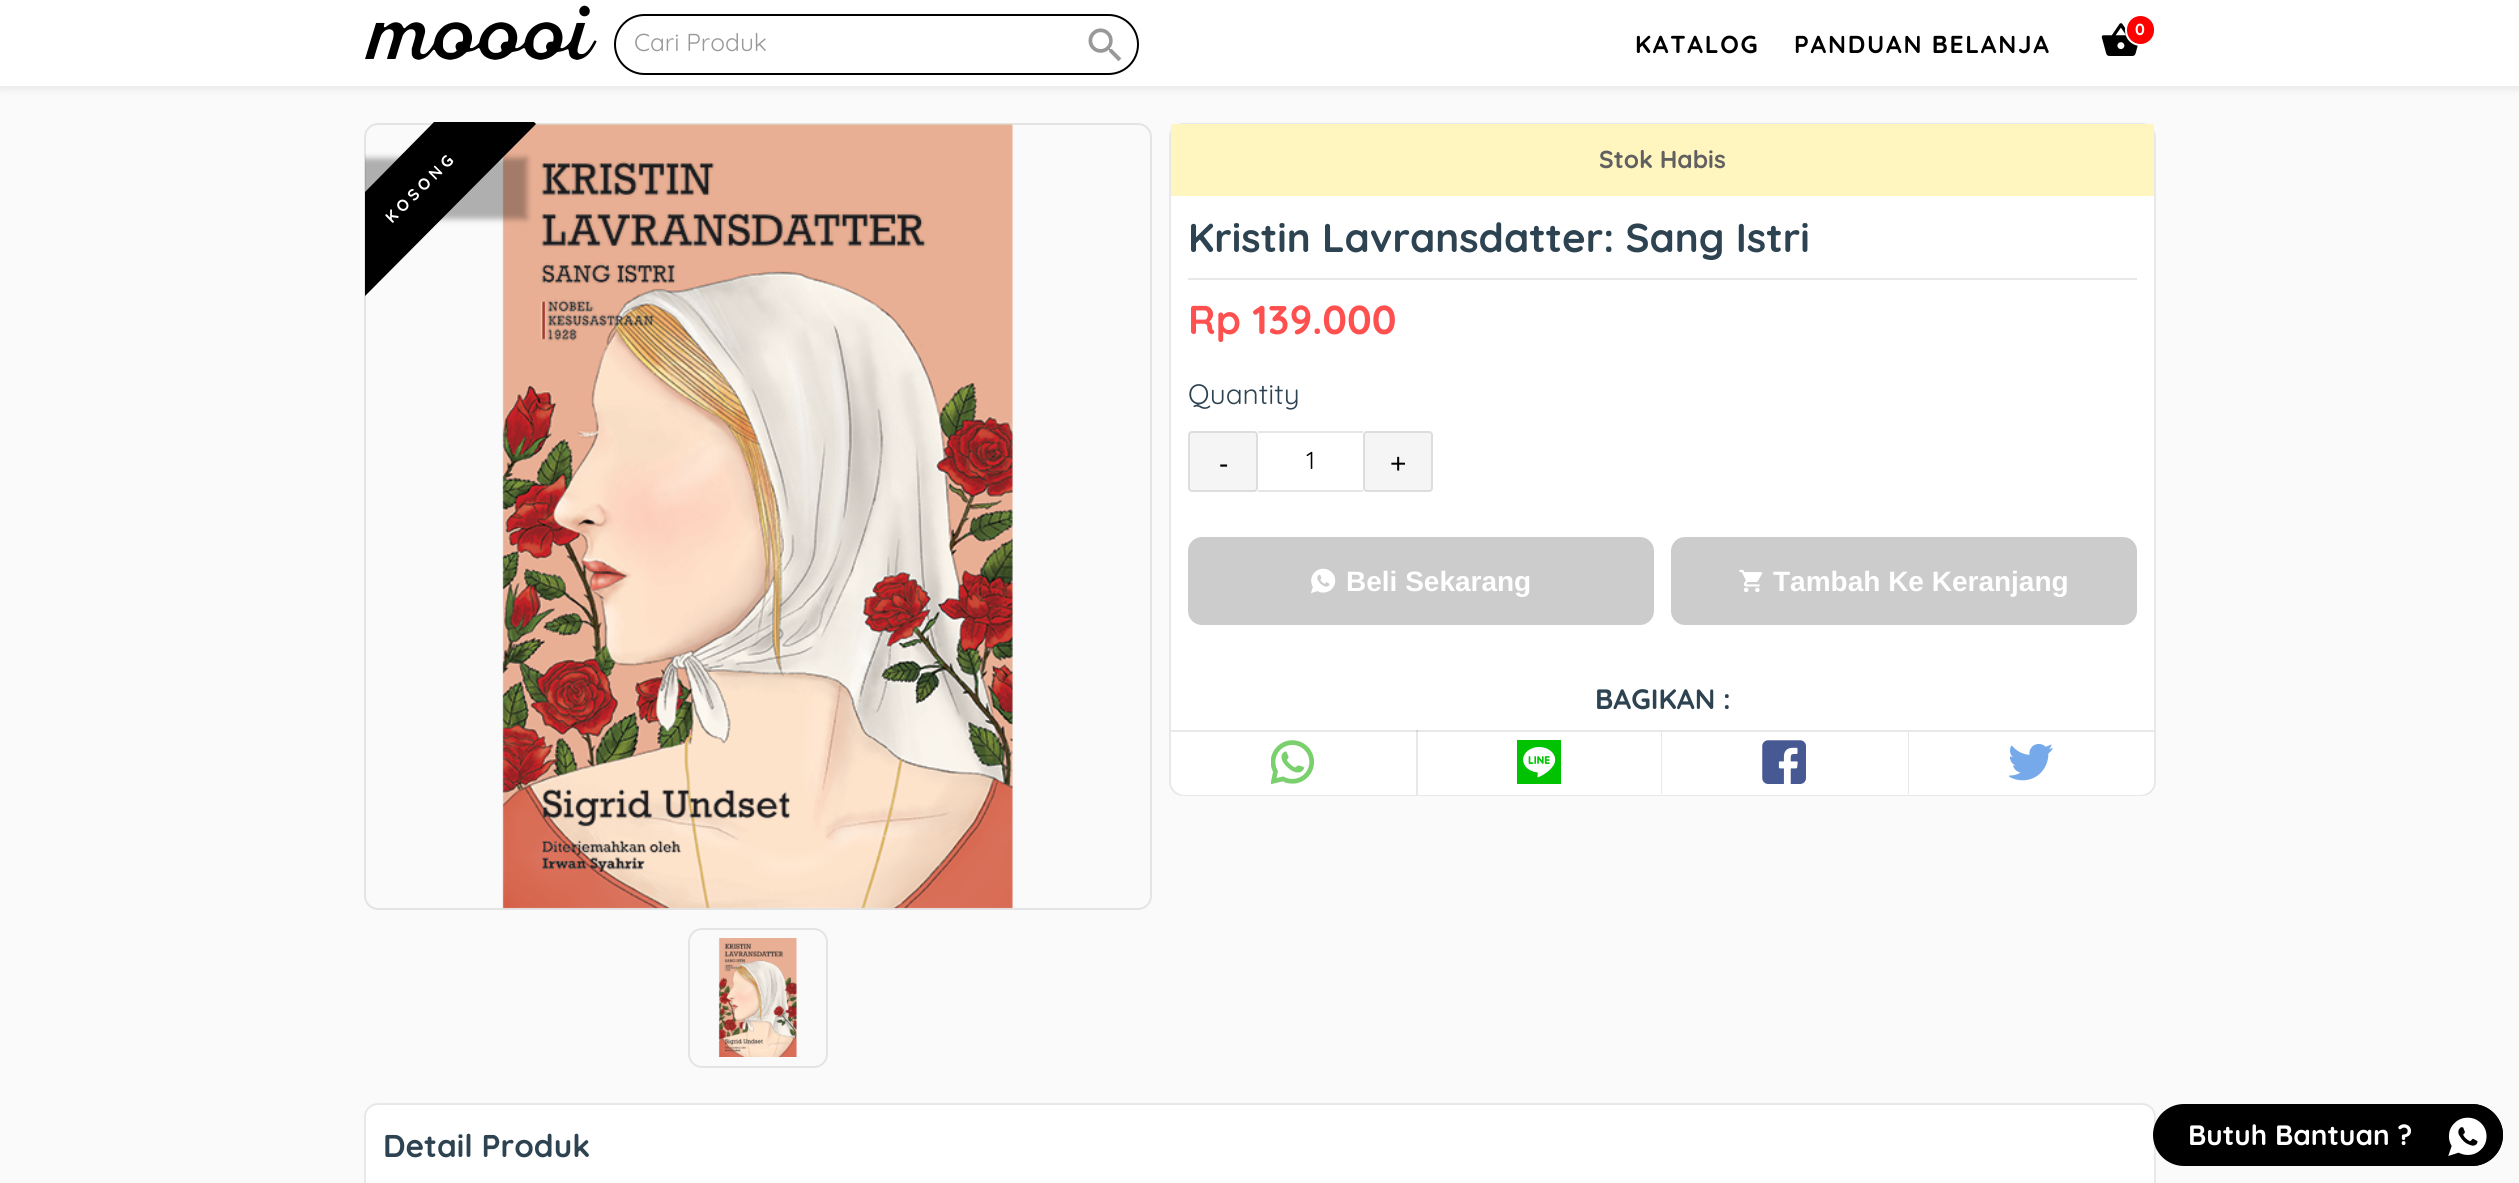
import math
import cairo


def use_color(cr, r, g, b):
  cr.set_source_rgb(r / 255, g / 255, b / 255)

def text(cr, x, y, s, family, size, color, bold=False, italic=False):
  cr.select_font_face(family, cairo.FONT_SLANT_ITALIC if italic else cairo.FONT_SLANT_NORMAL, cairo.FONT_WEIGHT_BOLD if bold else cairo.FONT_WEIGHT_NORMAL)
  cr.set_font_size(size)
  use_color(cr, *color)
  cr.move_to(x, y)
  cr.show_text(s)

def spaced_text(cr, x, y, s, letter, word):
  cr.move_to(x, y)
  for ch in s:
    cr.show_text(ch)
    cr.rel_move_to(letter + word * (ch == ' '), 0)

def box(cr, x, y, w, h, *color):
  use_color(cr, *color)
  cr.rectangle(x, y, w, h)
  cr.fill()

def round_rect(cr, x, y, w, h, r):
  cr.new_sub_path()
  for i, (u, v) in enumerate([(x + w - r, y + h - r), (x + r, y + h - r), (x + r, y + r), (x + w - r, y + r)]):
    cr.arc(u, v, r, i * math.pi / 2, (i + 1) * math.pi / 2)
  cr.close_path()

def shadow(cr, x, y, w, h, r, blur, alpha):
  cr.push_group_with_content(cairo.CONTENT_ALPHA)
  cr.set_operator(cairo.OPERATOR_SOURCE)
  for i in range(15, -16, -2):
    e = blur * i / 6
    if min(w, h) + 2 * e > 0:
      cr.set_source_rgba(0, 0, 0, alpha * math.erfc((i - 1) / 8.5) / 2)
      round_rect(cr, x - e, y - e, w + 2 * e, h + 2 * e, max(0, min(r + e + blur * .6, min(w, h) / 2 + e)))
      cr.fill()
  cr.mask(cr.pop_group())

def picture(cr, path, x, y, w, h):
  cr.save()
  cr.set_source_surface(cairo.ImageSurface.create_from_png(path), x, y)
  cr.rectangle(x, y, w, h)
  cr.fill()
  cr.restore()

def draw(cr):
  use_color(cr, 250, 250, 250)
  cr.paint()
  use_color(cr, 0, 0, 0)
  shadow(cr, 0, 0, 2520, 88, 0, 4.5, 0.1)
  box(cr, 0, 0, 2519, 86, 255, 255, 255)
  box(cr, 0, 86, 2519, 2, 238, 238, 238)
  picture(cr, "img_01.png", 365, 5, 232, 55)
  picture(cr, "img_02.png", 2101, 23, 37, 33)
  use_color(cr, 255, 0, 0)
  round_rect(cr, 2126, 15, 29, 30, 14.5)
  cr.fill_preserve()
  use_color(cr, 255, 255, 255)
  cr.stroke()
  round_rect(cr, 615, 15, 523, 59, 29.5)
  use_color(cr, 0, 0, 0)
  cr.stroke()
  picture(cr, "img_03.png", 1088, 28, 34, 34)
  round_rect(cr, 365, 124, 786, 785, 13)
  use_color(cr, 228, 228, 228)
  cr.stroke()
  picture(cr, "img_04.png", 502, 124, 511, 785)
  cr.save()
  cr.new_path()
  cr.move_to(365, 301)
  cr.line_to(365, 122.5)
  cr.line_to(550, 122.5)
  cr.line_to(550, 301)
  cr.close_path()
  cr.clip()
  use_color(cr, 0, 0, 0)
  shadow(cr, 317, 158, 210, 61, 0, 3, 0.3)
  cr.restore()
  use_color(cr, 0, 0, 0)
  cr.new_path()
  cr.move_to(534, 122)
  cr.line_to(536, 124)
  cr.line_to(365, 296)
  cr.line_to(365, 192)
  cr.line_to(434, 122)
  cr.close_path()
  cr.fill()
  round_rect(cr, 689, 929, 138, 138, 13)
  use_color(cr, 228, 228, 228)
  cr.stroke()
  picture(cr, "img_05.png", 718, 938, 79, 119)
  use_color(cr, 255, 255, 255)
  round_rect(cr, 1170, 124, 985, 671, 13)
  cr.fill_preserve()
  use_color(cr, 232, 232, 232)
  cr.stroke()
  box(cr, 1171, 124, 983, 72, 255, 246, 191)
  box(cr, 1188, 278, 949, 2, 232, 232, 232)
  use_color(cr, 245, 245, 245)
  round_rect(cr, 1188, 431, 70, 61, 4)
  cr.fill()
  round_rect(cr, 1189, 432, 68, 59, 3)
  cr.set_source_rgba(0, 0, 0, 0.1)
  cr.stroke()
  box(cr, 1258, 431, 105, 2, 230, 230, 230)
  box(cr, 1258, 490, 105, 2, 230, 230, 230)
  use_color(cr, 245, 245, 245)
  round_rect(cr, 1363, 431, 70, 61, 4)
  cr.fill()
  round_rect(cr, 1364, 432, 68, 59, 3)
  cr.set_source_rgba(0, 0, 0, 0.1)
  cr.stroke()
  use_color(cr, 204, 204, 204)
  round_rect(cr, 1188, 537, 466, 88, 14)
  cr.fill()
  picture(cr, "img_06.png", 1311, 568, 25, 25)
  round_rect(cr, 1671, 537, 466, 88, 14)
  cr.fill()
  picture(cr, "img_07.png", 1739, 569, 24, 24)
  use_color(cr, 255, 255, 255)
  cr.new_path()
  cr.move_to(1171, 730)
  cr.line_to(1418, 730)
  cr.line_to(1418, 795)
  cr.line_to(1185, 795)
  cr.curve_to(1177.5, 795, 1171, 788.5, 1171, 781)
  cr.close_path()
  cr.fill()
  box(cr, 1171, 730, 247, 2, 232, 232, 232)
  cr.set_source_rgba(0, 0, 0, 0.09)
  cr.rectangle(1416, 730, 2, 65)
  cr.fill()
  picture(cr, "img_08.png", 1271, 740, 43, 44)
  box(cr, 1418, 794, 491, 1, 255, 255, 255)
  use_color(cr, 232, 232, 232)
  cr.new_path()
  cr.move_to(1418, 730)
  cr.line_to(1662, 730)
  cr.line_to(1661, 732)
  cr.line_to(1418, 732)
  cr.close_path()
  cr.fill()
  cr.set_source_rgba(0, 0, 0, 0.09)
  cr.new_path()
  cr.move_to(1662, 730)
  cr.line_to(1662, 794)
  cr.line_to(1661, 794)
  cr.line_to(1661, 732)
  cr.close_path()
  cr.fill()
  picture(cr, "img_09.png", 1517, 740, 44, 44)
  use_color(cr, 232, 232, 232)
  cr.new_path()
  cr.move_to(1662, 730)
  cr.line_to(1909, 730)
  cr.line_to(1908, 732)
  cr.line_to(1662, 732)
  cr.close_path()
  cr.fill()
  cr.set_source_rgba(0, 0, 0, 0.09)
  cr.new_path()
  cr.move_to(1909, 730)
  cr.line_to(1909, 794)
  cr.line_to(1908, 794)
  cr.line_to(1908, 732)
  cr.close_path()
  cr.fill()
  picture(cr, "img_10.png", 1762, 740, 44, 44)
  use_color(cr, 255, 255, 255)
  cr.new_path()
  cr.move_to(1909, 730)
  cr.line_to(2154, 730)
  cr.line_to(2154, 781)
  cr.curve_to(2154, 788.5, 2147.5, 795, 2140, 795)
  cr.line_to(1909, 795)
  cr.close_path()
  cr.fill()
  box(cr, 1909, 730, 245, 2, 232, 232, 232)
  picture(cr, "img_11.png", 2009, 743, 44, 38)
  use_color(cr, 255, 255, 255)
  round_rect(cr, 365, 1104, 1790, 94, 13)
  cr.fill_preserve()
  use_color(cr, 232, 232, 232)
  cr.stroke()
  use_color(cr, 0, 0, 0)
  round_rect(cr, 2153, 1104, 350, 62, 31)
  cr.fill()
  cr.new_path()
  cr.move_to(2433, 1104)
  cr.line_to(2472, 1104)
  cr.curve_to(2489, 1104, 2503, 1118, 2503, 1135)
  cr.curve_to(2503, 1152, 2489, 1166, 2472, 1166)
  cr.line_to(2433, 1166)
  cr.close_path()
  cr.fill()
  picture(cr, "img_12.png", 2448, 1117, 39, 39)
  text(cr, 2135, 35, "0", "Quicksand", 16, (255, 255, 255), bold=True)
  text(cr, 634, 51, "Cari Produk", "Quicksand", 24.5, (153, 153, 153))
  cr.select_font_face("Quicksand", cairo.FONT_SLANT_NORMAL, cairo.FONT_WEIGHT_BOLD)
  use_color(cr, 0, 0, 0)
  spaced_text(cr, 1635, 53, "KATALOG", 1.75, 0)
  spaced_text(cr, 1794, 53, "PANDUAN BELANJA", 1.75, 0)
  cr.set_font_size(16)
  use_color(cr, 255, 255, 255)
  cr.save()
  cr.translate(392, 224)
  cr.rotate(-45 * math.pi / 180)
  spaced_text(cr, 0, 0, "KOSONG", 4.25, 0)
  cr.restore()
  text(cr, 1599, 168, "Stok Habis", "Quicksand", 24.5, (96, 96, 96), bold=True)
  text(cr, 1188, 252, "Kristin Lavransdatter: Sang Istri", "Quicksand", 40.25, (45, 67, 81), bold=True)
  text(cr, 1188, 334, "Rp 139.000", "Quicksand", 40.25, (255, 80, 80), bold=True)
  text(cr, 1188, 404, "Quantity", "Quicksand", 28, (45, 67, 81))
  text(cr, 1219, 473, "-", "Liberation Sans", 28, (0, 0, 0))
  text(cr, 1306, 469, "1", "Quicksand", 24.5, (0, 0, 0))
  text(cr, 1390, 473, "+", "Liberation Sans", 28, (0, 0, 0))
  text(cr, 1346, 591, "Beli Sekarang", "Liberation Sans", 28, (255, 255, 255), bold=True)
  text(cr, 1773, 591, "Tambah Ke Keranjang", "Liberation Sans", 28, (255, 255, 255), bold=True)
  text(cr, 1595, 709, "BAGIKAN :", "Quicksand", 28, (45, 67, 81), bold=True)
  text(cr, 383, 1157, "Detail Produk", "Quicksand", 31.5, (45, 67, 81), bold=True)
  text(cr, 2188, 1145, "Butuh Bantuan ?", "Quicksand", 28, (255, 255, 255), bold=True)


surface = cairo.ImageSurface(cairo.FORMAT_RGB24, 2519, 1183)
cr = cairo.Context(surface)
options = cairo.FontOptions()
options.set_hint_metrics(cairo.HINT_METRICS_OFF)
options.set_hint_style(cairo.HINT_STYLE_NONE)
cr.set_font_options(options)
cr.set_miter_limit(4)
draw(cr)
surface.write_to_png("out.png")
